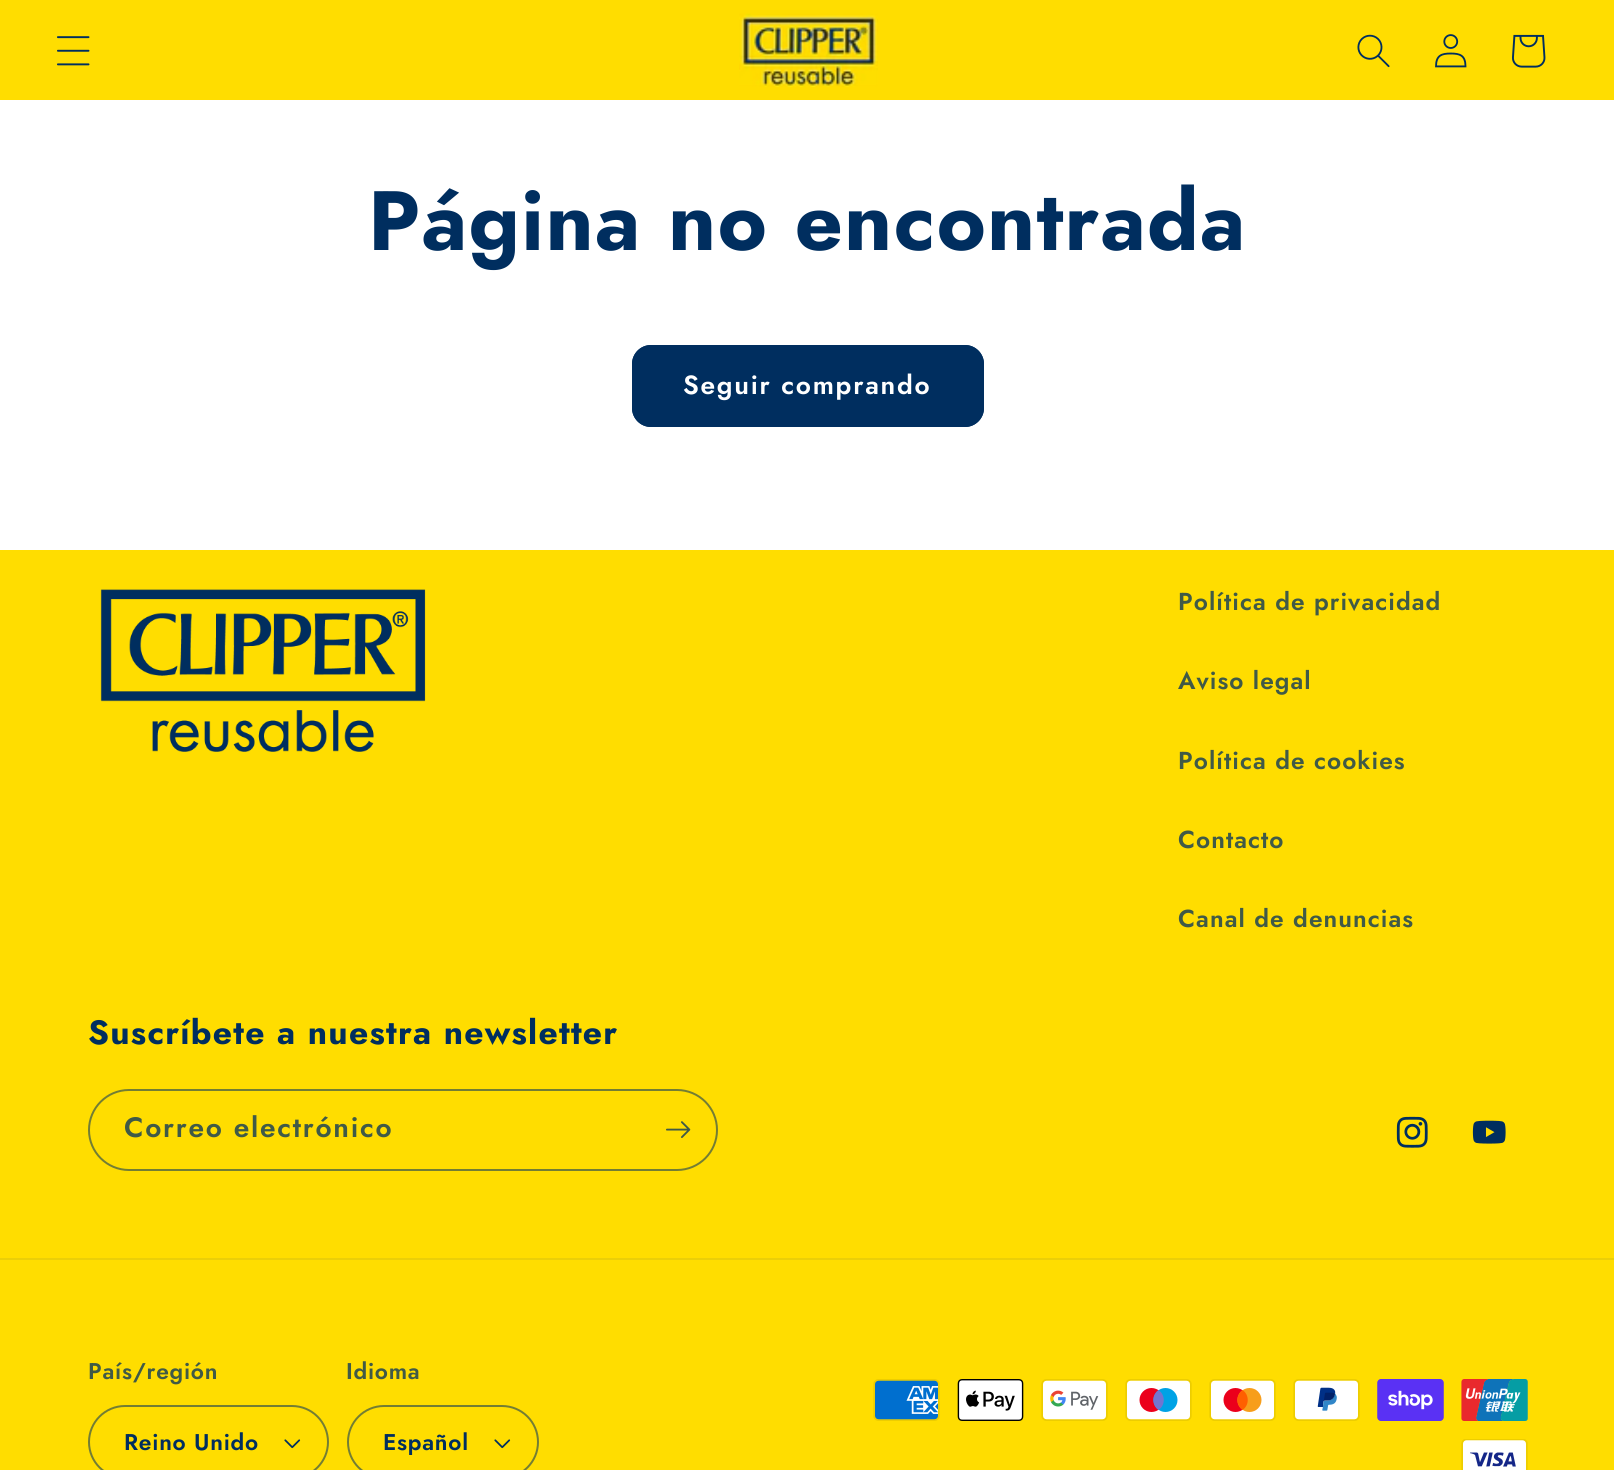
import math
import cairo


def use_color(cr, r, g, b):
  cr.set_source_rgb(r / 255, g / 255, b / 255)

def spaced_text(cr, x, y, s, letter, word):
  cr.move_to(x, y)
  for ch in s:
    cr.show_text(ch)
    cr.rel_move_to(letter + word * (ch == ' '), 0)

def box(cr, x, y, w, h, *color):
  use_color(cr, *color)
  cr.rectangle(x, y, w, h)
  cr.fill()

def round_rect(cr, x, y, w, h, r):
  cr.new_sub_path()
  for i, (u, v) in enumerate([(x + w - r, y + h - r), (x + r, y + h - r), (x + r, y + r), (x + w - r, y + r)]):
    cr.arc(u, v, r, i * math.pi / 2, (i + 1) * math.pi / 2)
  cr.close_path()

def picture(cr, path, x, y, w, h):
  cr.save()
  cr.set_source_surface(cairo.ImageSurface.create_from_png(path), x, y)
  cr.rectangle(x, y, w, h)
  cr.fill()
  cr.restore()

def draw(cr):
  use_color(cr, 255, 255, 255)
  cr.paint()
  box(cr, 0, 0, 1614, 100, 255, 221, 0)
  picture(cr, "img_01.png", 57, 36, 33, 30)
  picture(cr, "img_02.png", 739, 13, 139, 74)
  picture(cr, "img_03.png", 1357, 34, 33, 34)
  picture(cr, "img_04.png", 1435, 34, 32, 34)
  picture(cr, "img_05.png", 1512, 34, 34, 34)
  use_color(cr, 0, 46, 95)
  round_rect(cr, 632, 345, 352, 82, 19)
  cr.fill()
  round_rect(cr, 633, 346, 350, 80, 18)
  cr.stroke()
  box(cr, 0, 550, 1614, 920, 255, 221, 0)
  picture(cr, "img_06.png", 100, 589, 326, 163)
  round_rect(cr, 89, 1090, 628, 80, 40)
  use_color(cr, 115, 125, 52)
  cr.stroke()
  picture(cr, "img_07.png", 666, 1121, 25, 17)
  picture(cr, "img_08.png", 1396, 1116, 32, 32)
  picture(cr, "img_09.png", 1472, 1120, 34, 24)
  box(cr, 0, 1258, 1614, 2, 235, 207, 8)
  picture(cr, "img_10.png", 284, 1439, 17, 10)
  round_rect(cr, 89, 1406, 239, 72, 36)
  use_color(cr, 115, 125, 52)
  cr.stroke()
  picture(cr, "img_10.png", 494, 1439, 17, 10)
  round_rect(cr, 348, 1406, 190, 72, 36)
  cr.stroke()
  picture(cr, "img_11.png", 873, 1379, 67, 42)
  picture(cr, "img_12.png", 957, 1379, 67, 42)
  picture(cr, "img_13.png", 1041, 1379, 67, 42)
  picture(cr, "img_14.png", 1125, 1379, 67, 42)
  picture(cr, "img_15.png", 1209, 1379, 67, 42)
  picture(cr, "img_16.png", 1293, 1379, 67, 42)
  picture(cr, "img_17.png", 1377, 1379, 67, 42)
  picture(cr, "img_18.png", 1461, 1379, 67, 42)
  picture(cr, "img_19.png", 1461, 1439, 67, 31)
  cr.select_font_face("Jost", cairo.FONT_SLANT_NORMAL, cairo.FONT_WEIGHT_BOLD)
  cr.set_font_size(84)
  use_color(cr, 0, 46, 95)
  spaced_text(cr, 368, 250, "Página no encontrada", 1.25, 0)
  cr.select_font_face("Jost SemiBold")
  cr.set_font_size(26.25)
  use_color(cr, 255, 255, 255)
  spaced_text(cr, 683, 394, "Seguir comprando", 1.75, 0)
  cr.set_font_size(24.5)
  use_color(cr, 64, 90, 71)
  spaced_text(cr, 1178, 610, "Política de privacidad", 1.05, 0)
  spaced_text(cr, 1178, 689, "Aviso legal", 1.05, 0)
  spaced_text(cr, 1178, 769, "Política de cookies", 1.05, 0)
  spaced_text(cr, 1178, 848, "Contacto", 1.05, 0)
  spaced_text(cr, 1178, 927, "Canal de denuncias", 1.05, 0)
  cr.select_font_face("Jost", cairo.FONT_SLANT_NORMAL, cairo.FONT_WEIGHT_BOLD)
  cr.set_font_size(33.6)
  use_color(cr, 0, 46, 95)
  spaced_text(cr, 88, 1044, "Suscríbete a nuestra newsletter", 1.25, 0)
  cr.select_font_face("Jost SemiBold")
  cr.set_font_size(28)
  use_color(cr, 64, 90, 71)
  spaced_text(cr, 124, 1137, "Correo electrónico", 1.75, 0)
  cr.set_font_size(22.75)
  spaced_text(cr, 88, 1379, "País/región", 0.75, 0)
  use_color(cr, 0, 46, 95)
  spaced_text(cr, 124, 1450, "Reino Unido", 0.75, 0)
  use_color(cr, 64, 90, 71)
  spaced_text(cr, 346, 1379, "Idioma", 0.75, 0)
  use_color(cr, 0, 46, 95)
  spaced_text(cr, 383, 1450, "Español", 0.75, 0)


surface = cairo.ImageSurface(cairo.FORMAT_RGB24, 1614, 1470)
cr = cairo.Context(surface)
options = cairo.FontOptions()
options.set_hint_metrics(cairo.HINT_METRICS_OFF)
options.set_hint_style(cairo.HINT_STYLE_NONE)
cr.set_font_options(options)
cr.set_miter_limit(4)
draw(cr)
surface.write_to_png("out.png")
